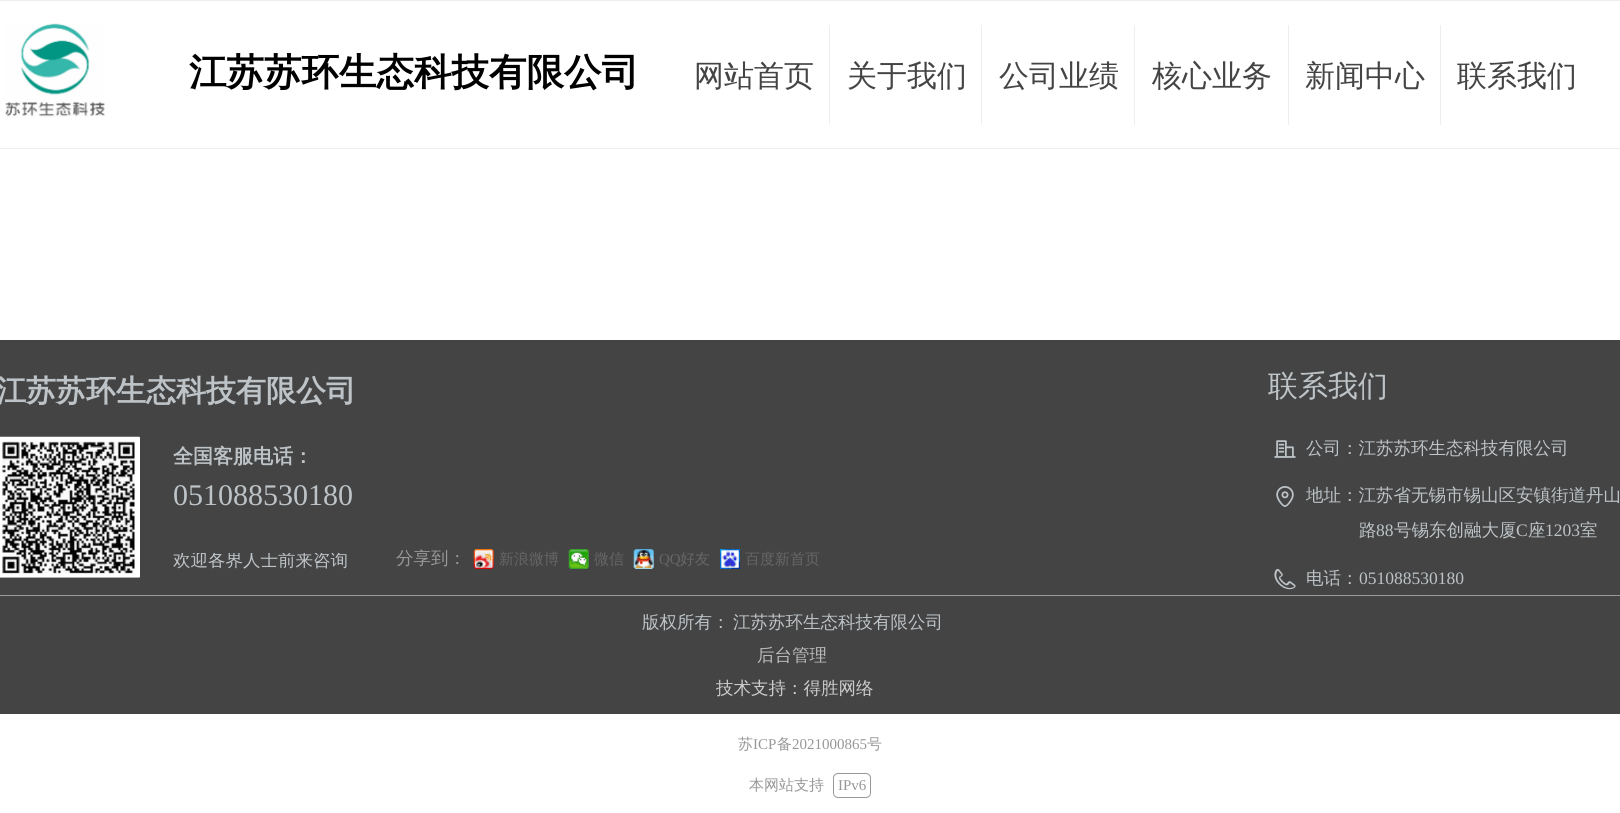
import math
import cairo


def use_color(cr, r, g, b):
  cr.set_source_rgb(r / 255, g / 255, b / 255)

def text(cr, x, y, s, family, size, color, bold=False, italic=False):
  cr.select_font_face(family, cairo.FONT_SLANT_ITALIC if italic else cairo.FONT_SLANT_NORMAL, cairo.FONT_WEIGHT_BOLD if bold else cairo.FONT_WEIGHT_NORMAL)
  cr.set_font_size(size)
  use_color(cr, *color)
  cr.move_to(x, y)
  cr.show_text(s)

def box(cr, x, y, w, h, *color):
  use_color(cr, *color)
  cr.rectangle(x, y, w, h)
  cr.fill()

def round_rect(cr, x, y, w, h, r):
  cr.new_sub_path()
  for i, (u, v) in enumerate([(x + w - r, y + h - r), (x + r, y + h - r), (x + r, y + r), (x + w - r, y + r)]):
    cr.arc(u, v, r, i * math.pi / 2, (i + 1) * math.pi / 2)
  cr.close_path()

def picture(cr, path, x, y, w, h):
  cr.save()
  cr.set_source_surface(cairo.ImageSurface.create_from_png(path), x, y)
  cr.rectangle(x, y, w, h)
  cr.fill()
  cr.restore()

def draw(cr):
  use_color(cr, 255, 255, 255)
  cr.paint()
  box(cr, 0, 0, 1620, 1, 238, 238, 238)
  box(cr, 0, 148, 1620, 1, 238, 238, 238)
  picture(cr, "img_01.png", 5, 23, 100, 94)
  box(cr, 829, 25, 1, 100, 238, 238, 238)
  box(cr, 981, 25, 1, 100, 238, 238, 238)
  box(cr, 1134, 25, 1, 100, 238, 238, 238)
  box(cr, 1288, 25, 1, 100, 238, 238, 238)
  box(cr, 1440, 25, 1, 100, 238, 238, 238)
  box(cr, 0, 340, 1620, 374, 68, 68, 68)
  picture(cr, "img_02.png", 0, 436, 140, 142)
  picture(cr, "img_03.png", 1274, 440, 22, 18)
  picture(cr, "img_04.png", 1276, 486, 18, 21)
  picture(cr, "img_05.png", 1274, 568, 22, 22)
  picture(cr, "img_06.png", 473, 549, 21, 20)
  picture(cr, "img_07.png", 568, 549, 21, 20)
  picture(cr, "img_08.png", 633, 549, 21, 20)
  picture(cr, "img_09.png", 720, 549, 20, 20)
  box(cr, 0, 595, 1620, 1, 153, 153, 153)
  round_rect(cr, 833.5, 773.5, 37, 24, 4.5)
  use_color(cr, 152, 152, 152)
  cr.set_line_width(1)
  cr.stroke()
  text(cr, 189, 85, "江苏苏环生态科技有限公司", "WenQuanYi Zen Hei", 37.5, (0, 0, 0), bold=True)
  text(cr, 694, 86, "网站首页", "WenQuanYi Zen Hei Medium", 30, (68, 68, 68))
  text(cr, 847, 86, "关于我们", "WenQuanYi Zen Hei Medium", 30, (68, 68, 68))
  text(cr, 999, 86, "公司业绩", "WenQuanYi Zen Hei Medium", 30, (68, 68, 68))
  text(cr, 1152, 86, "核心业务", "WenQuanYi Zen Hei Medium", 30, (68, 68, 68))
  text(cr, 1305, 86, "新闻中心", "WenQuanYi Zen Hei Medium", 30, (68, 68, 68))
  text(cr, 1457, 86, "联系我们", "WenQuanYi Zen Hei Medium", 30, (68, 68, 68))
  text(cr, -4, 401, "江苏苏环生态科技有限公司", "WenQuanYi Zen Hei", 30, (189, 195, 199), bold=True)
  cr.save()
  cr.rectangle(1268, 370, 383, 45)
  cr.clip()
  text(cr, 1268, 396, "联系我们", "WenQuanYi Zen Hei Medium", 30, (189, 195, 199))
  cr.restore()
  text(cr, 173, 463, "全国客服电话：", "WenQuanYi Zen Hei", 20, (189, 195, 199), bold=True)
  text(cr, 1306, 454, "公司：江苏苏环生态科技有限公司", "WenQuanYi Zen Hei Medium", 17.5, (189, 195, 199))
  text(cr, 1306, 501, "地址：江苏省无锡市锡山区安镇街道丹山", "WenQuanYi Zen Hei Medium", 17.5, (189, 195, 199))
  text(cr, 1359, 536, "路", "WenQuanYi Zen Hei Medium", 17.5, (189, 195, 199))
  text(cr, 1376, 536, "88", "Liberation Serif", 17.5, (189, 195, 199))
  text(cr, 1394, 536, "号锡东创融大厦", "WenQuanYi Zen Hei Medium", 17.5, (189, 195, 199))
  text(cr, 1516, 536, "C", "Liberation Serif", 17.5, (189, 195, 199))
  text(cr, 1528, 536, "座", "WenQuanYi Zen Hei Medium", 17.5, (189, 195, 199))
  text(cr, 1545, 536, "1203", "Liberation Serif", 17.5, (189, 195, 199))
  text(cr, 1580, 536, "室", "WenQuanYi Zen Hei Medium", 17.5, (189, 195, 199))
  text(cr, 1306, 584, "电话：", "WenQuanYi Zen Hei Medium", 17.5, (189, 195, 199))
  text(cr, 1359, 584, "051088530180", "Liberation Serif", 17.5, (189, 195, 199))
  text(cr, 173, 505, "051088530180", "Liberation Serif", 30, (189, 195, 199))
  cr.save()
  cr.rectangle(173, 553, 200, 26)
  cr.clip()
  text(cr, 173, 566, "欢迎各界人士前来咨询", "WenQuanYi Zen Hei Medium", 17.5, (189, 195, 199))
  cr.restore()
  text(cr, 396, 564, "分享到：", "WenQuanYi Zen Hei Medium", 17.5, (152, 152, 152))
  text(cr, 499, 564, "新浪微博", "WenQuanYi Zen Hei Medium", 15, (102, 102, 102))
  text(cr, 594, 564, "微信", "WenQuanYi Zen Hei Medium", 15, (102, 102, 102))
  text(cr, 659, 564, "QQ", "Liberation Serif", 15, (102, 102, 102))
  text(cr, 680, 564, "好友", "WenQuanYi Zen Hei Medium", 15, (102, 102, 102))
  text(cr, 745, 564, "百度新首页", "WenQuanYi Zen Hei Medium", 15, (102, 102, 102))
  text(cr, 642, 628, "版权所有：", "WenQuanYi Zen Hei Medium", 17.5, (189, 195, 199))
  text(cr, 733, 628, "江苏苏环生态科技有限公司", "WenQuanYi Zen Hei Medium", 17.5, (189, 195, 199))
  text(cr, 757, 661, "后台管理", "WenQuanYi Zen Hei Medium", 17.5, (187, 187, 187))
  text(cr, 716, 694, "技术支持：得胜网络", "WenQuanYi Zen Hei Medium", 17.5, (204, 204, 204))
  text(cr, 738, 749, "苏", "WenQuanYi Zen Hei Medium", 15, (152, 152, 152))
  text(cr, 753, 749, "ICP", "Liberation Serif", 15, (152, 152, 152))
  text(cr, 777, 749, "备", "WenQuanYi Zen Hei Medium", 15, (152, 152, 152))
  text(cr, 792, 749, "2021000865", "Liberation Serif", 15, (152, 152, 152))
  text(cr, 867, 749, "号", "WenQuanYi Zen Hei Medium", 15, (152, 152, 152))
  text(cr, 749, 790, "本网站支持", "WenQuanYi Zen Hei Medium", 15, (152, 152, 152))
  text(cr, 838, 790, "IPv6", "Liberation Serif", 15, (152, 152, 152))


surface = cairo.ImageSurface(cairo.FORMAT_RGB24, 1620, 813)
cr = cairo.Context(surface)
options = cairo.FontOptions()
options.set_hint_metrics(cairo.HINT_METRICS_OFF)
options.set_hint_style(cairo.HINT_STYLE_NONE)
cr.set_font_options(options)
cr.set_miter_limit(4)
draw(cr)
surface.write_to_png("out.png")
